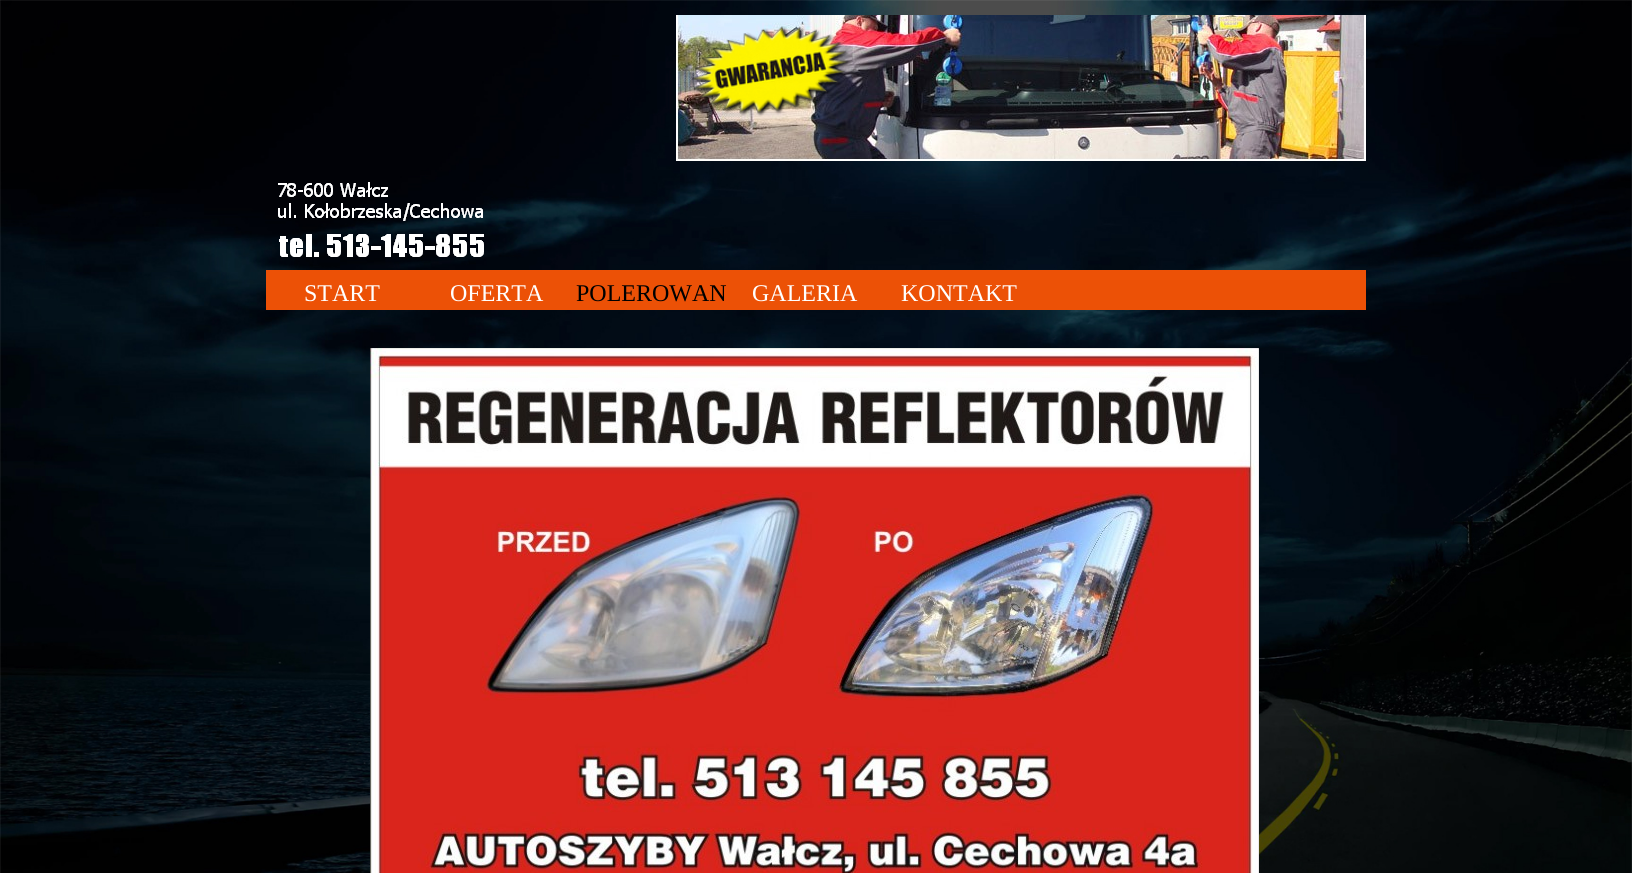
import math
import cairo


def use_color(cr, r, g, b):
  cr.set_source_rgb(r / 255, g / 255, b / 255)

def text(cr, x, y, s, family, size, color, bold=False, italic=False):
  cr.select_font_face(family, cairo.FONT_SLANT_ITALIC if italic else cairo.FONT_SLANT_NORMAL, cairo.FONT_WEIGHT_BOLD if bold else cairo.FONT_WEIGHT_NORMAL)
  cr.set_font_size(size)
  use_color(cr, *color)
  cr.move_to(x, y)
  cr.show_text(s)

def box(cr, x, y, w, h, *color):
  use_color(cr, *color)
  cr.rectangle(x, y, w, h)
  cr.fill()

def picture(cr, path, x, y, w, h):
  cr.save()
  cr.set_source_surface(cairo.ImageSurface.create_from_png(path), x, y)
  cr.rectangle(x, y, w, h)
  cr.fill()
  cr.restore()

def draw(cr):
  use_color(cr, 255, 255, 255)
  cr.paint()
  picture(cr, "img_01.png", 0, 0, 1632, 873)
  picture(cr, "img_02.png", 676, 15, 690, 146)
  picture(cr, "img_03.png", 691, 26, 161, 91)
  picture(cr, "img_04.png", 278, 182, 110, 15)
  picture(cr, "img_05.png", 278, 203, 205, 18)
  picture(cr, "img_06.png", 279, 234, 205, 23)
  box(cr, 266, 270, 1100, 40, 236, 81, 6)
  picture(cr, "img_07.png", 370, 348, 889, 525)
  text(cr, 304, 301, "START", "Liberation Serif", 24, (255, 255, 255))
  text(cr, 450, 301, "OFERTA", "Liberation Serif", 24, (255, 255, 255))
  text(cr, 576, 301, "POLEROWAN", "Liberation Serif", 24, (0, 0, 0))
  text(cr, 752, 301, "GALERIA", "Liberation Serif", 24, (255, 255, 255))
  text(cr, 901, 301, "KONTAKT", "Liberation Serif", 24, (255, 255, 255))


surface = cairo.ImageSurface(cairo.FORMAT_RGB24, 1632, 873)
cr = cairo.Context(surface)
options = cairo.FontOptions()
options.set_hint_metrics(cairo.HINT_METRICS_OFF)
options.set_hint_style(cairo.HINT_STYLE_NONE)
cr.set_font_options(options)
cr.set_miter_limit(4)
draw(cr)
surface.write_to_png("out.png")
